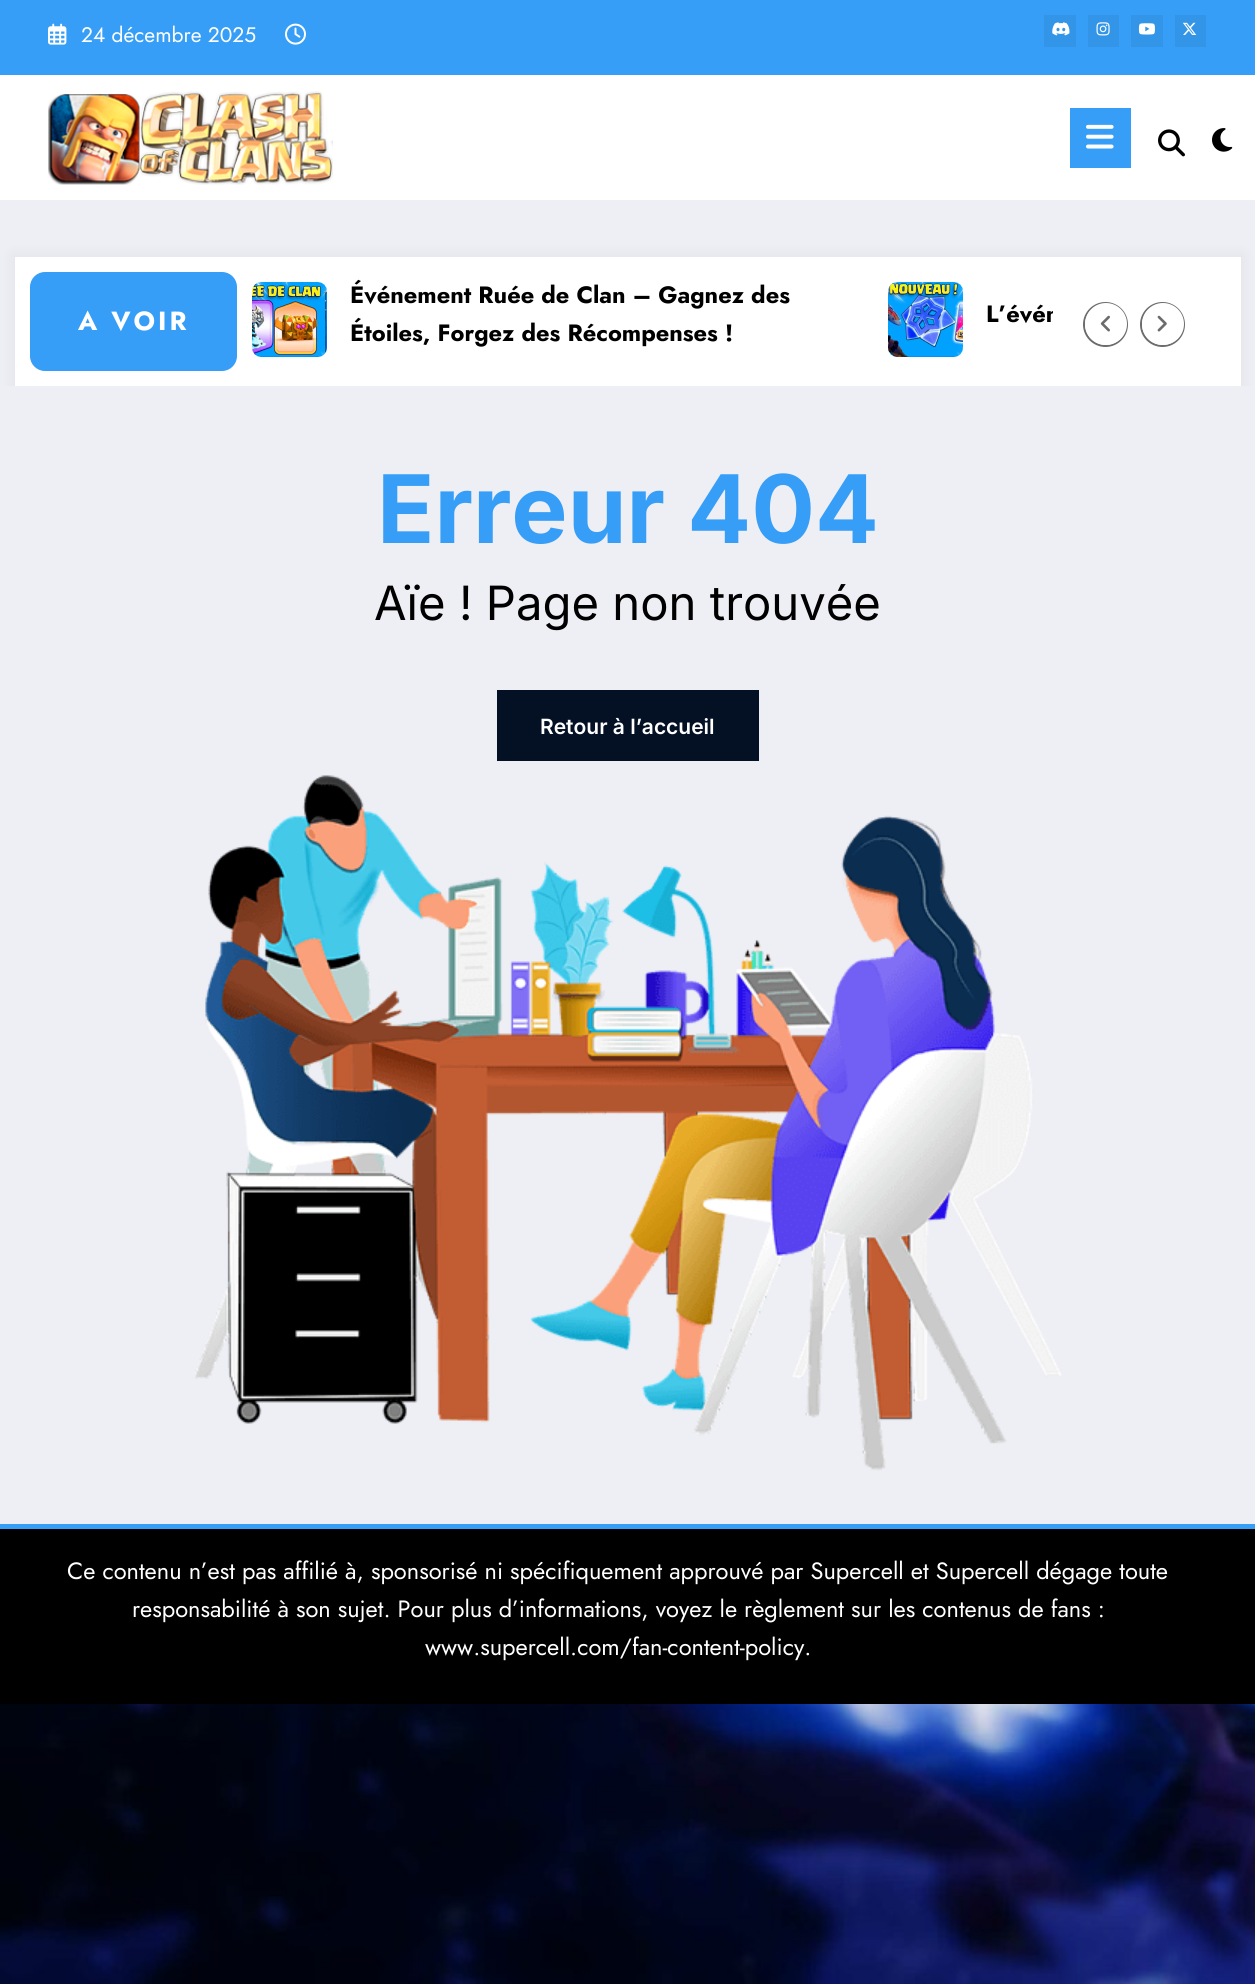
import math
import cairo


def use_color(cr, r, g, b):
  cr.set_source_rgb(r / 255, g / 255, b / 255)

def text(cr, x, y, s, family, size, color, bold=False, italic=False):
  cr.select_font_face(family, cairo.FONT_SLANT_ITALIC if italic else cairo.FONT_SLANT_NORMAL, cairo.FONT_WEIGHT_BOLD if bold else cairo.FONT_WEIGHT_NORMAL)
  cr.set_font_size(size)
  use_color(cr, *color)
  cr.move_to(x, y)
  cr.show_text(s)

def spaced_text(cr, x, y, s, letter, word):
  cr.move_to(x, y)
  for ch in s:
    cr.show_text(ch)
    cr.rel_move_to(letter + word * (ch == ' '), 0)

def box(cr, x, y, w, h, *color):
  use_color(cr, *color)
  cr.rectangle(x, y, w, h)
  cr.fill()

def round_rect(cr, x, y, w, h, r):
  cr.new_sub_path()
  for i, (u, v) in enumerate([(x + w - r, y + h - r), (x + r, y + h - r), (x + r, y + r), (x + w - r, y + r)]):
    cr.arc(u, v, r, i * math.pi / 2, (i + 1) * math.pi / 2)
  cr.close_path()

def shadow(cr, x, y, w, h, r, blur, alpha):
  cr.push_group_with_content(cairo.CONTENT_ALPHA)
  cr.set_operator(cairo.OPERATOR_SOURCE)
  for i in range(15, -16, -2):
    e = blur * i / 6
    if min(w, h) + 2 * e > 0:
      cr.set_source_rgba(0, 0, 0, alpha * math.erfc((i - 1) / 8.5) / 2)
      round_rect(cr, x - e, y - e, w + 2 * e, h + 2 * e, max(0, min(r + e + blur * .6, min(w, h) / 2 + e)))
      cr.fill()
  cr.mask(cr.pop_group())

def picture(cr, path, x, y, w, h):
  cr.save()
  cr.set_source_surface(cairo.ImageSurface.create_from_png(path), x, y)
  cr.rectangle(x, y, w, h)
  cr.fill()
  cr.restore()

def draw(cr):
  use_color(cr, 255, 255, 255)
  cr.paint()
  picture(cr, "img_01.png", 0, 1704, 1255, 280)
  box(cr, 0, 200, 1255, 1324, 238, 238, 245)
  box(cr, 0, 0, 1255, 75, 54, 158, 246)
  picture(cr, "img_02.png", 48, 23, 19, 22)
  picture(cr, "img_03.png", 285, 23, 21, 22)
  box(cr, 1044, 15, 32, 32, 51, 149, 231)
  picture(cr, "img_04.png", 1052, 22, 18, 14)
  box(cr, 1088, 15, 31, 32, 51, 149, 231)
  picture(cr, "img_05.png", 1096, 22, 14, 14)
  box(cr, 1131, 15, 32, 32, 51, 149, 231)
  picture(cr, "img_06.png", 1138, 23, 17, 12)
  box(cr, 1175, 15, 31, 32, 51, 149, 231)
  picture(cr, "img_07.png", 1182, 22, 15, 13)
  picture(cr, "img_08.png", 48, 91, 285, 94)
  box(cr, 1070, 108, 61, 60, 54, 158, 246)
  picture(cr, "img_09.png", 1086, 124, 28, 25)
  picture(cr, "img_10.png", 1158, 129, 27, 28)
  picture(cr, "img_11.png", 1212, 128, 21, 24)
  cr.save()
  cr.rectangle(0, 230, 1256, 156)
  cr.clip()
  use_color(cr, 23, 23, 35)
  shadow(cr, 12, 254, 1232, 135, 0, 6, 0.05)
  cr.restore()
  box(cr, 15, 257, 1226, 129, 255, 255, 255)
  use_color(cr, 54, 158, 246)
  round_rect(cr, 30, 272, 207, 99, 15)
  cr.fill()
  picture(cr, "img_12.png", 252, 282, 75, 75)
  picture(cr, "img_13.png", 888, 282, 75, 75)
  cr.arc(1105.5, 324.5, 21.5, 0, 2 * math.pi)
  use_color(cr, 108, 108, 111)
  cr.stroke()
  use_color(cr, 255, 255, 255)
  cr.arc(1106, 324, 21, 0, 2 * math.pi)
  cr.fill()
  picture(cr, "img_14.png", 1100, 315, 10, 17)
  cr.arc(1162.5, 324.5, 21.5, 0, 2 * math.pi)
  use_color(cr, 108, 108, 111)
  cr.stroke()
  use_color(cr, 255, 255, 255)
  cr.arc(1163, 324, 21, 0, 2 * math.pi)
  cr.fill()
  picture(cr, "img_15.png", 1157, 315, 10, 17)
  box(cr, 497, 690, 262, 71, 4, 17, 36)
  picture(cr, "img_16.png", 195, 775, 867, 696)
  box(cr, 0, 1524, 1255, 5, 54, 158, 246)
  box(cr, 0, 1529, 1255, 175, 0, 0, 0)
  text(cr, 81, 42, "24 décembre 2025", "Jost", 21, (255, 255, 255))
  cr.select_font_face("Jost", cairo.FONT_SLANT_NORMAL, cairo.FONT_WEIGHT_BOLD)
  cr.set_font_size(26.25)
  spaced_text(cr, 78, 330, "A VOIR", 3, 0)
  text(cr, 350, 303, "Événement Ruée de Clan – Gagnez des", "Jost", 23.6, (0, 0, 0), bold=True)
  text(cr, 350, 341, "Étoiles, Forgez des Récompenses !", "Jost", 23.6, (0, 0, 0), bold=True)
  cr.save()
  cr.rectangle(986, 296, 67, 37)
  cr.clip()
  text(cr, 986, 322, "L’évén", "Jost", 23.6, (0, 0, 0), bold=True)
  cr.restore()
  text(cr, 377, 543, "Erreur 404", "Inter", 94.5, (54, 158, 246), bold=True)
  text(cr, 374, 620, "Aïe ! Page non trouvée", "Inter", 47.25, (0, 0, 0))
  text(cr, 540, 734, "Retour à l’accueil", "Inter SemiBold", 21, (255, 255, 255))
  text(cr, 67, 1579, "Ce contenu n’est pas affilié à, sponsorisé ni spécifiquement approuvé par Supercell et Supercell dégage toute", "Jost", 23.6, (255, 255, 255))
  text(cr, 132, 1617, "responsabilité à son sujet. Pour plus d’informations, voyez le règlement sur les contenus de fans :", "Jost", 23.6, (255, 255, 255))
  text(cr, 425, 1655, "www.supercell.com/fan-content-policy.", "Jost", 23.6, (255, 255, 255))


surface = cairo.ImageSurface(cairo.FORMAT_RGB24, 1255, 1984)
cr = cairo.Context(surface)
options = cairo.FontOptions()
options.set_hint_metrics(cairo.HINT_METRICS_OFF)
options.set_hint_style(cairo.HINT_STYLE_NONE)
cr.set_font_options(options)
cr.set_miter_limit(4)
draw(cr)
surface.write_to_png("out.png")
